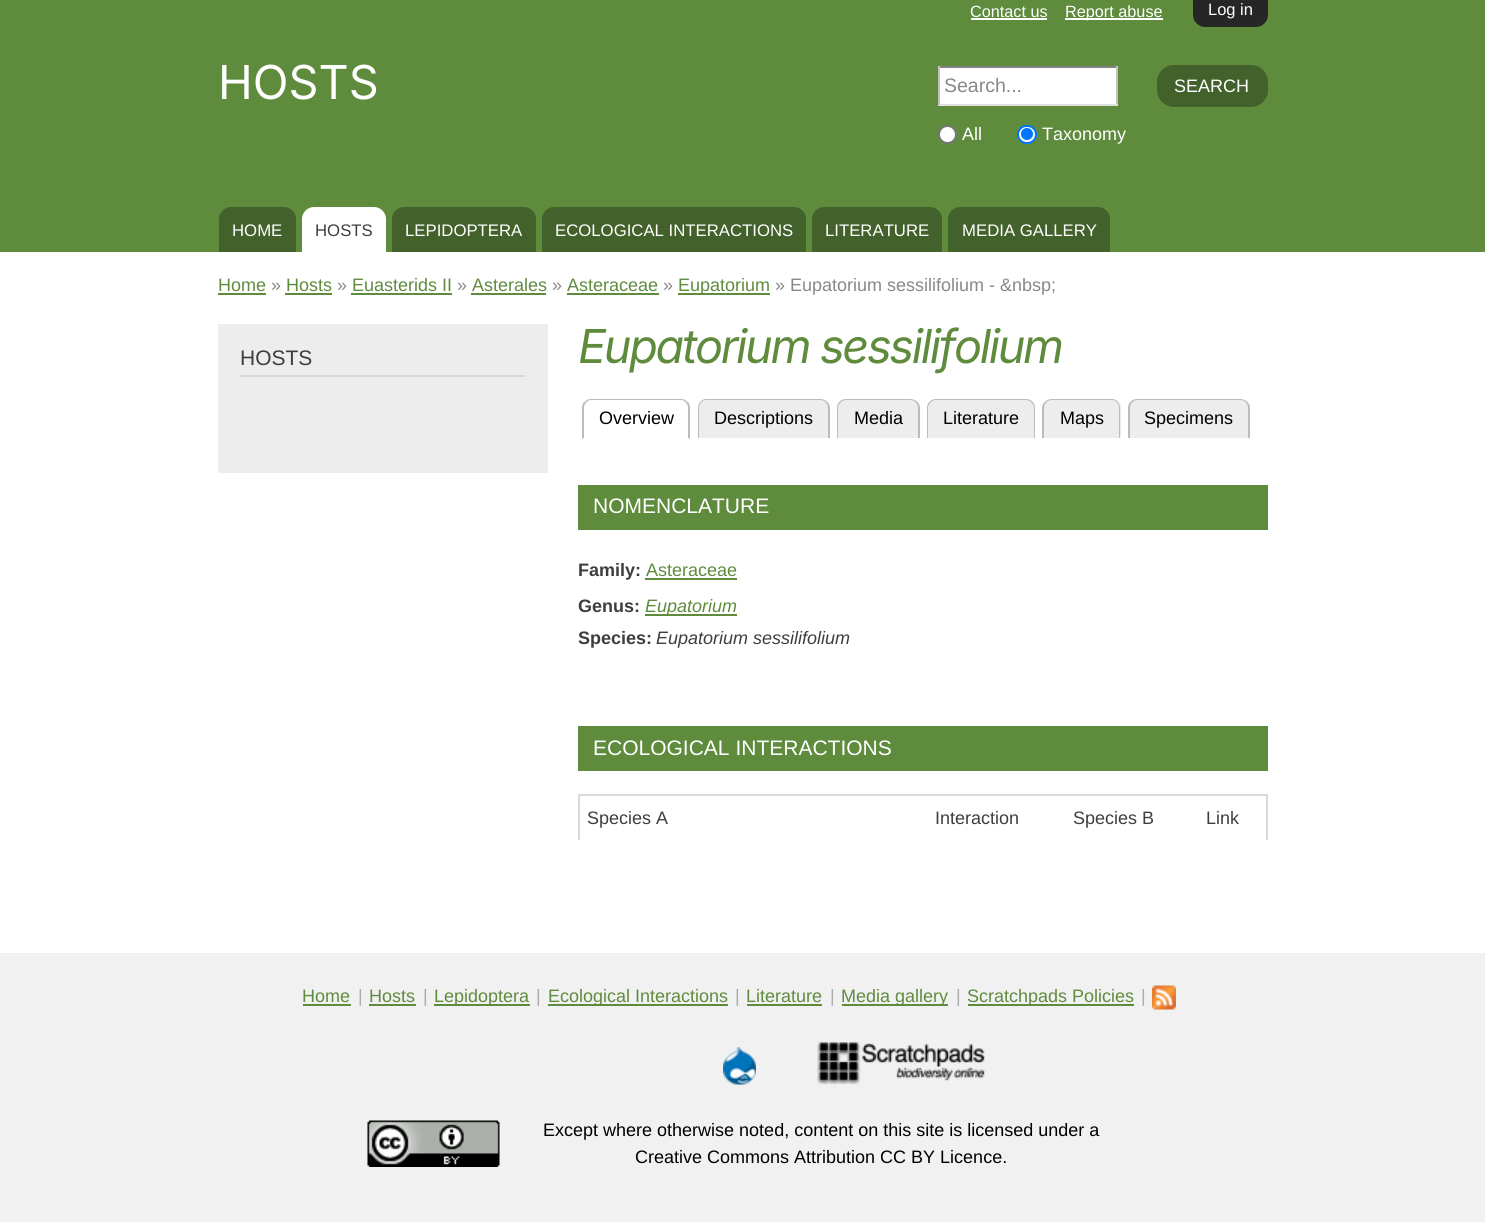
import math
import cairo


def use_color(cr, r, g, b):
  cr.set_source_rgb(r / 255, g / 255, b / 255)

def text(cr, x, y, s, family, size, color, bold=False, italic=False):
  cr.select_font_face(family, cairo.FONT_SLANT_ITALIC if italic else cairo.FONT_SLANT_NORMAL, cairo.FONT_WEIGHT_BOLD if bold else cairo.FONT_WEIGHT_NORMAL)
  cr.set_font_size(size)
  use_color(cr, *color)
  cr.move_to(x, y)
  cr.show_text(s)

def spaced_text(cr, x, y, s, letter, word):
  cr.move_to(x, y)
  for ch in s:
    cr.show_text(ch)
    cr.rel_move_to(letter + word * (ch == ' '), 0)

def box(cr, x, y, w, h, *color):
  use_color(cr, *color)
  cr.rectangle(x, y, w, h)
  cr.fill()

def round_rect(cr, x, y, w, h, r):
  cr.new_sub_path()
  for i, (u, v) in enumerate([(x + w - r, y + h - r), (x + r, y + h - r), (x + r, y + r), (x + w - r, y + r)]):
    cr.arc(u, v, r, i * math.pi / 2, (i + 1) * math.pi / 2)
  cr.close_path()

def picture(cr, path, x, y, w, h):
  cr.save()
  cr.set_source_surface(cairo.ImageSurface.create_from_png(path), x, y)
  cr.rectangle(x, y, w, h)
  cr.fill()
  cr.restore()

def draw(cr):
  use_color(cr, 255, 255, 255)
  cr.paint()
  box(cr, 0, 0, 1485, 252, 95, 139, 61)
  use_color(cr, 38, 38, 38)
  cr.new_path()
  cr.move_to(1193, -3)
  cr.line_to(1268, -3)
  cr.line_to(1268, 15)
  cr.curve_to(1268, 21.5, 1262.5, 27, 1256, 27)
  cr.line_to(1205, 27)
  cr.curve_to(1198.5, 27, 1193, 21.5, 1193, 15)
  cr.close_path()
  cr.fill()
  box(cr, 971, 18, 76, 2, 255, 255, 255)
  box(cr, 1065, 18, 98, 2, 255, 255, 255)
  box(cr, 940, 68, 176, 36, 255, 255, 255)
  box(cr, 938, 66, 180, 2, 132, 132, 132)
  box(cr, 1116, 66, 2, 39, 193, 193, 193)
  box(cr, 938, 104, 180, 2, 225, 225, 225)
  box(cr, 938, 66, 2, 39, 193, 193, 193)
  use_color(cr, 67, 97, 43)
  round_rect(cr, 1157, 65, 111, 42, 17)
  cr.fill()
  use_color(cr, 255, 255, 255)
  cr.arc(947.5, 134.5, 8.5, 0, 2 * math.pi)
  cr.fill_preserve()
  use_color(cr, 118, 118, 118)
  cr.stroke()
  use_color(cr, 255, 255, 255)
  round_rect(cr, 1018, 126, 18, 17, 8.5)
  cr.fill_preserve()
  use_color(cr, 0, 117, 255)
  cr.stroke()
  cr.arc(1027, 134, 6, 0, 2 * math.pi)
  cr.fill()
  use_color(cr, 67, 97, 43)
  cr.new_path()
  cr.move_to(231, 207)
  cr.line_to(284, 207)
  cr.curve_to(290.5, 207, 296, 212.5, 296, 219)
  cr.line_to(296, 252)
  cr.line_to(219, 252)
  cr.line_to(219, 219)
  cr.curve_to(219, 212.5, 224.5, 207, 231, 207)
  cr.close_path()
  cr.fill()
  use_color(cr, 255, 255, 255)
  cr.new_path()
  cr.move_to(314, 207)
  cr.line_to(374, 207)
  cr.curve_to(380.5, 207, 386, 212.5, 386, 219)
  cr.line_to(386, 252)
  cr.line_to(302, 252)
  cr.line_to(302, 219)
  cr.curve_to(302, 212.5, 307.5, 207, 314, 207)
  cr.close_path()
  cr.fill()
  use_color(cr, 67, 97, 43)
  cr.new_path()
  cr.move_to(404, 207)
  cr.line_to(524, 207)
  cr.curve_to(530.5, 207, 536, 212.5, 536, 219)
  cr.line_to(536, 252)
  cr.line_to(392, 252)
  cr.line_to(392, 219)
  cr.curve_to(392, 212.5, 397.5, 207, 404, 207)
  cr.close_path()
  cr.fill()
  cr.new_path()
  cr.move_to(554, 207)
  cr.line_to(794, 207)
  cr.curve_to(800.5, 207, 806, 212.5, 806, 219)
  cr.line_to(806, 252)
  cr.line_to(542, 252)
  cr.line_to(542, 219)
  cr.curve_to(542, 212.5, 547.5, 207, 554, 207)
  cr.close_path()
  cr.fill()
  cr.new_path()
  cr.move_to(824, 207)
  cr.line_to(930, 207)
  cr.curve_to(936.5, 207, 942, 212.5, 942, 219)
  cr.line_to(942, 252)
  cr.line_to(812, 252)
  cr.line_to(812, 219)
  cr.curve_to(812, 212.5, 817.5, 207, 824, 207)
  cr.close_path()
  cr.fill()
  cr.new_path()
  cr.move_to(960, 207)
  cr.line_to(1098, 207)
  cr.curve_to(1104.5, 207, 1110, 212.5, 1110, 219)
  cr.line_to(1110, 252)
  cr.line_to(948, 252)
  cr.line_to(948, 219)
  cr.curve_to(948, 212.5, 953.5, 207, 960, 207)
  cr.close_path()
  cr.fill()
  box(cr, 218, 293, 48, 2, 95, 139, 61)
  box(cr, 285, 293, 47, 2, 95, 139, 61)
  box(cr, 351, 293, 101, 2, 95, 139, 61)
  box(cr, 471, 293, 75, 2, 95, 139, 61)
  box(cr, 567, 293, 92, 2, 95, 139, 61)
  box(cr, 678, 293, 92, 2, 95, 139, 61)
  box(cr, 218, 324, 330, 149, 237, 237, 237)
  box(cr, 240, 375, 285, 2, 214, 214, 214)
  use_color(cr, 187, 187, 187)
  cr.new_path()
  cr.move_to(591, 399)
  cr.curve_to(588, 399, 586, 400, 585, 402)
  cr.line_to(586, 403)
  cr.curve_to(587, 401, 589, 400, 591, 400)
  cr.line_to(681, 400)
  cr.curve_to(683, 400, 685, 401, 686, 403)
  cr.line_to(687, 402)
  cr.curve_to(686, 400, 684, 399, 681, 399)
  cr.close_path()
  cr.fill()
  cr.new_path()
  cr.move_to(690, 439.5)
  cr.line_to(690, 408)
  cr.curve_to(690, 405.5, 689, 403, 687.5, 401.5)
  cr.line_to(686, 403)
  cr.curve_to(687.5, 404, 688, 406, 688, 408)
  cr.line_to(688, 437.5)
  cr.close_path()
  cr.fill()
  use_color(cr, 255, 255, 255)
  cr.new_path()
  cr.move_to(690, 440)
  cr.line_to(582, 440)
  cr.line_to(584, 438)
  cr.line_to(688, 438)
  cr.close_path()
  cr.fill()
  use_color(cr, 187, 187, 187)
  cr.new_path()
  cr.move_to(582, 439.5)
  cr.line_to(584, 437.5)
  cr.line_to(584, 408)
  cr.curve_to(584, 406, 584.5, 404, 586, 403)
  cr.line_to(584.5, 401.5)
  cr.curve_to(583, 403, 582, 405.5, 582, 408)
  cr.close_path()
  cr.fill()
  use_color(cr, 237, 237, 237)
  cr.new_path()
  cr.move_to(707, 399)
  cr.line_to(821, 399)
  cr.curve_to(826, 399, 830, 403, 830, 408)
  cr.line_to(830, 438)
  cr.line_to(698, 438)
  cr.line_to(698, 408)
  cr.curve_to(698, 403, 702, 399, 707, 399)
  cr.close_path()
  cr.fill()
  use_color(cr, 187, 187, 187)
  cr.set_fill_rule(cairo.FILL_RULE_EVEN_ODD)
  cr.new_path()
  cr.move_to(706, 399)
  cr.line_to(820, 399)
  cr.curve_to(825, 399, 830, 403, 830, 408)
  cr.line_to(830, 438)
  cr.line_to(698, 438)
  cr.line_to(698, 408)
  cr.curve_to(698, 403, 702, 399, 706, 399)
  cr.close_path()
  cr.move_to(706, 400)
  cr.line_to(820, 400)
  cr.curve_to(825, 400, 828, 404, 828, 408)
  cr.line_to(828, 438)
  cr.line_to(699, 438)
  cr.line_to(699, 408)
  cr.curve_to(699, 404, 702, 400, 706, 400)
  cr.close_path()
  cr.fill()
  use_color(cr, 237, 237, 237)
  cr.new_path()
  cr.move_to(846, 399)
  cr.line_to(911, 399)
  cr.curve_to(916, 399, 920, 403, 920, 408)
  cr.line_to(920, 438)
  cr.line_to(837, 438)
  cr.line_to(837, 408)
  cr.curve_to(837, 403, 841, 399, 846, 399)
  cr.close_path()
  cr.fill()
  use_color(cr, 187, 187, 187)
  cr.new_path()
  cr.move_to(846, 399)
  cr.line_to(910, 399)
  cr.curve_to(915, 399, 920, 403, 920, 408)
  cr.line_to(920, 438)
  cr.line_to(837, 438)
  cr.line_to(837, 408)
  cr.curve_to(837, 403, 841, 399, 846, 399)
  cr.close_path()
  cr.move_to(846, 400)
  cr.line_to(910, 400)
  cr.curve_to(915, 400, 918, 404, 918, 408)
  cr.line_to(918, 438)
  cr.line_to(838, 438)
  cr.line_to(838, 408)
  cr.curve_to(838, 404, 842, 400, 846, 400)
  cr.close_path()
  cr.fill()
  use_color(cr, 237, 237, 237)
  cr.new_path()
  cr.move_to(936, 399)
  cr.line_to(1026, 399)
  cr.curve_to(1031, 399, 1035, 403, 1035, 408)
  cr.line_to(1035, 438)
  cr.line_to(927, 438)
  cr.line_to(927, 408)
  cr.curve_to(927, 403, 931, 399, 936, 399)
  cr.close_path()
  cr.fill()
  use_color(cr, 187, 187, 187)
  cr.new_path()
  cr.move_to(936, 399)
  cr.line_to(1026, 399)
  cr.curve_to(1031, 399, 1035, 403, 1035, 408)
  cr.line_to(1035, 438)
  cr.line_to(927, 438)
  cr.line_to(927, 408)
  cr.curve_to(927, 403, 931, 399, 936, 399)
  cr.close_path()
  cr.move_to(936, 400)
  cr.line_to(1026, 400)
  cr.curve_to(1030, 400, 1034, 404, 1034, 408)
  cr.line_to(1034, 438)
  cr.line_to(928, 438)
  cr.line_to(928, 408)
  cr.curve_to(928, 404, 932, 400, 936, 400)
  cr.close_path()
  cr.fill()
  use_color(cr, 237, 237, 237)
  cr.new_path()
  cr.move_to(1052, 399)
  cr.line_to(1112, 399)
  cr.curve_to(1117, 399, 1121, 403, 1121, 408)
  cr.line_to(1121, 438)
  cr.line_to(1043, 438)
  cr.line_to(1043, 408)
  cr.curve_to(1043, 403, 1047, 399, 1052, 399)
  cr.close_path()
  cr.fill()
  use_color(cr, 187, 187, 187)
  cr.new_path()
  cr.move_to(1052, 399)
  cr.line_to(1112, 399)
  cr.curve_to(1116, 399, 1120, 403, 1120, 408)
  cr.line_to(1120, 438)
  cr.line_to(1042, 438)
  cr.line_to(1042, 408)
  cr.curve_to(1042, 403, 1047, 399, 1052, 399)
  cr.close_path()
  cr.move_to(1052, 400)
  cr.line_to(1112, 400)
  cr.curve_to(1116, 400, 1119, 404, 1119, 408)
  cr.line_to(1119, 438)
  cr.line_to(1044, 438)
  cr.line_to(1044, 408)
  cr.curve_to(1044, 404, 1047, 400, 1052, 400)
  cr.close_path()
  cr.fill()
  use_color(cr, 237, 237, 237)
  cr.new_path()
  cr.move_to(1137, 399)
  cr.line_to(1241, 399)
  cr.curve_to(1246, 399, 1250, 403, 1250, 408)
  cr.line_to(1250, 438)
  cr.line_to(1128, 438)
  cr.line_to(1128, 408)
  cr.curve_to(1128, 403, 1132, 399, 1137, 399)
  cr.close_path()
  cr.fill()
  use_color(cr, 187, 187, 187)
  cr.new_path()
  cr.move_to(1137, 399)
  cr.line_to(1240, 399)
  cr.curve_to(1245, 399, 1250, 403, 1250, 408)
  cr.line_to(1250, 438)
  cr.line_to(1128, 438)
  cr.line_to(1128, 408)
  cr.curve_to(1128, 403, 1132, 399, 1137, 399)
  cr.close_path()
  cr.move_to(1137, 400)
  cr.line_to(1240, 400)
  cr.curve_to(1245, 400, 1248, 404, 1248, 408)
  cr.line_to(1248, 438)
  cr.line_to(1130, 438)
  cr.line_to(1130, 408)
  cr.curve_to(1130, 404, 1133, 400, 1137, 400)
  cr.close_path()
  cr.fill()
  box(cr, 578, 485, 690, 45, 95, 139, 61)
  box(cr, 645, 578, 92, 2, 95, 139, 61)
  box(cr, 645, 614, 92, 2, 95, 139, 61)
  box(cr, 578, 726, 690, 45, 95, 139, 61)
  box(cr, 578, 794, 690, 2, 217, 218, 221)
  box(cr, 1266, 794, 2, 46, 217, 218, 221)
  box(cr, 578, 794, 2, 46, 217, 218, 221)
  box(cr, 0, 953, 1485, 269, 241, 241, 241)
  box(cr, 303, 1004, 48, 2, 95, 139, 61)
  box(cr, 369, 1004, 47, 2, 95, 139, 61)
  box(cr, 434, 1004, 96, 2, 95, 139, 61)
  box(cr, 548, 1004, 180, 2, 95, 139, 61)
  box(cr, 747, 1004, 75, 2, 95, 139, 61)
  box(cr, 842, 1004, 106, 2, 95, 139, 61)
  box(cr, 968, 1004, 166, 2, 95, 139, 61)
  picture(cr, "img_01.png", 1152, 985, 24, 25)
  picture(cr, "img_02.png", 723, 1047, 33, 38)
  picture(cr, "img_03.png", 817, 1042, 168, 43)
  picture(cr, "img_04.png", 367, 1120, 133, 47)
  text(cr, 1208, 15, "Log in", "Liberation Sans", 16.5, (255, 255, 255))
  text(cr, 970, 17, "Contact us", "Liberation Sans", 16.25, (255, 255, 255))
  text(cr, 1065, 17, "Report abuse", "Liberation Sans", 16.25, (255, 255, 255))
  text(cr, 218, 99, "HOSTS", "Inter", 46.75, (255, 255, 255))
  text(cr, 944, 92, "Search...", "Liberation Sans", 19.5, (136, 136, 136))
  text(cr, 1174, 92, "SEARCH", "Liberation Sans", 18, (255, 255, 255))
  text(cr, 962, 140, "All", "Liberation Sans", 18, (255, 255, 255))
  text(cr, 1042, 140, "Taxonomy", "Liberation Sans", 18, (255, 255, 255))
  text(cr, 232, 236, "HOME", "Liberation Sans", 16.75, (255, 255, 255))
  text(cr, 315, 236, "HOSTS", "Liberation Sans", 16.75, (62, 62, 62))
  text(cr, 405, 236, "LEPIDOPTERA", "Liberation Sans", 16.75, (255, 255, 255))
  text(cr, 555, 236, "ECOLOGICAL INTERACTIONS", "Liberation Sans", 16.75, (255, 255, 255))
  text(cr, 825, 236, "LITERATURE", "Liberation Sans", 16.75, (255, 255, 255))
  text(cr, 962, 236, "MEDIA GALLERY", "Liberation Sans", 16.75, (255, 255, 255))
  text(cr, 218, 291, "Home", "Liberation Sans", 18, (95, 139, 61))
  text(cr, 271, 291, "»", "Liberation Sans", 18, (136, 136, 136))
  text(cr, 286, 291, "Hosts", "Liberation Sans", 18, (95, 139, 61))
  text(cr, 337, 291, "»", "Liberation Sans", 18, (136, 136, 136))
  text(cr, 352, 291, "Euasterids II", "Liberation Sans", 18, (95, 139, 61))
  text(cr, 457, 291, "»", "Liberation Sans", 18, (136, 136, 136))
  text(cr, 472, 291, "Asterales", "Liberation Sans", 18, (95, 139, 61))
  text(cr, 552, 291, "»", "Liberation Sans", 18, (136, 136, 136))
  text(cr, 567, 291, "Asteraceae", "Liberation Sans", 18, (95, 139, 61))
  text(cr, 663, 291, "»", "Liberation Sans", 18, (136, 136, 136))
  text(cr, 678, 291, "Eupatorium", "Liberation Sans", 18, (95, 139, 61))
  text(cr, 775, 291, "» Eupatorium sessilifolium - &nbsp;", "Liberation Sans", 18, (136, 136, 136))
  text(cr, 240, 365, "HOSTS", "Liberation Sans", 21, (62, 62, 62))
  cr.select_font_face("Inter", cairo.FONT_SLANT_ITALIC)
  cr.set_font_size(46.75)
  use_color(cr, 95, 139, 61)
  spaced_text(cr, 578, 363, "Eupatorium sessilifolium", -2.3, 0)
  text(cr, 599, 424, "Overview", "Liberation Sans", 18, (0, 0, 0))
  text(cr, 714, 424, "Descriptions", "Liberation Sans", 18, (0, 0, 0))
  text(cr, 854, 424, "Media", "Liberation Sans", 18, (0, 0, 0))
  text(cr, 943, 424, "Literature", "Liberation Sans", 18, (0, 0, 0))
  text(cr, 1060, 424, "Maps", "Liberation Sans", 18, (0, 0, 0))
  text(cr, 1144, 424, "Specimens", "Liberation Sans", 18, (0, 0, 0))
  text(cr, 593, 513, "NOMENCLATURE", "Liberation Sans", 21, (255, 255, 255))
  text(cr, 578, 576, "Family:", "Liberation Sans", 18, (62, 62, 62), bold=True)
  text(cr, 646, 576, "Asteraceae", "Liberation Sans", 18, (95, 139, 61))
  text(cr, 578, 612, "Genus:", "Liberation Sans", 18, (62, 62, 62), bold=True)
  text(cr, 645, 612, "Eupatorium", "Liberation Sans", 18, (95, 139, 61), italic=True)
  text(cr, 578, 644, "Species:", "Liberation Sans", 18, (62, 62, 62), bold=True)
  text(cr, 656, 644, "Eupatorium sessilifolium", "Liberation Sans", 18, (62, 62, 62), italic=True)
  text(cr, 593, 755, "ECOLOGICAL INTERACTIONS", "Liberation Sans", 21, (255, 255, 255))
  text(cr, 587, 824, "Species A", "Liberation Sans", 18, (62, 62, 62))
  text(cr, 935, 824, "Interaction", "Liberation Sans", 18, (62, 62, 62))
  text(cr, 1073, 824, "Species B", "Liberation Sans", 18, (62, 62, 62))
  text(cr, 1206, 824, "Link", "Liberation Sans", 18, (62, 62, 62))
  text(cr, 302, 1002, "Home", "Liberation Sans", 18, (95, 139, 61))
  text(cr, 358, 1002, "|", "Liberation Sans", 18, (172, 172, 172))
  text(cr, 369, 1002, "Hosts", "Liberation Sans", 18, (95, 139, 61))
  text(cr, 423, 1002, "|", "Liberation Sans", 18, (172, 172, 172))
  text(cr, 434, 1002, "Lepidoptera", "Liberation Sans", 18, (95, 139, 61))
  text(cr, 536, 1002, "|", "Liberation Sans", 18, (172, 172, 172))
  text(cr, 548, 1002, "Ecological Interactions", "Liberation Sans", 18, (95, 139, 61))
  text(cr, 735, 1002, "|", "Liberation Sans", 18, (172, 172, 172))
  text(cr, 746, 1002, "Literature", "Liberation Sans", 18, (95, 139, 61))
  text(cr, 830, 1002, "|", "Liberation Sans", 18, (172, 172, 172))
  text(cr, 841, 1002, "Media gallery", "Liberation Sans", 18, (95, 139, 61))
  text(cr, 956, 1002, "|", "Liberation Sans", 18, (172, 172, 172))
  text(cr, 967, 1002, "Scratchpads Policies", "Liberation Sans", 18, (95, 139, 61))
  text(cr, 1141, 1002, "|", "Liberation Sans", 18, (172, 172, 172))
  text(cr, 543, 1136, "Except where otherwise noted, content on this site is licensed under a", "Liberation Sans", 18, (0, 0, 0))
  text(cr, 635, 1163, "Creative Commons Attribution CC BY Licence.", "Liberation Sans", 18, (0, 0, 0))


surface = cairo.ImageSurface(cairo.FORMAT_RGB24, 1485, 1222)
cr = cairo.Context(surface)
options = cairo.FontOptions()
options.set_hint_metrics(cairo.HINT_METRICS_OFF)
options.set_hint_style(cairo.HINT_STYLE_NONE)
cr.set_font_options(options)
cr.set_miter_limit(4)
draw(cr)
surface.write_to_png("out.png")
